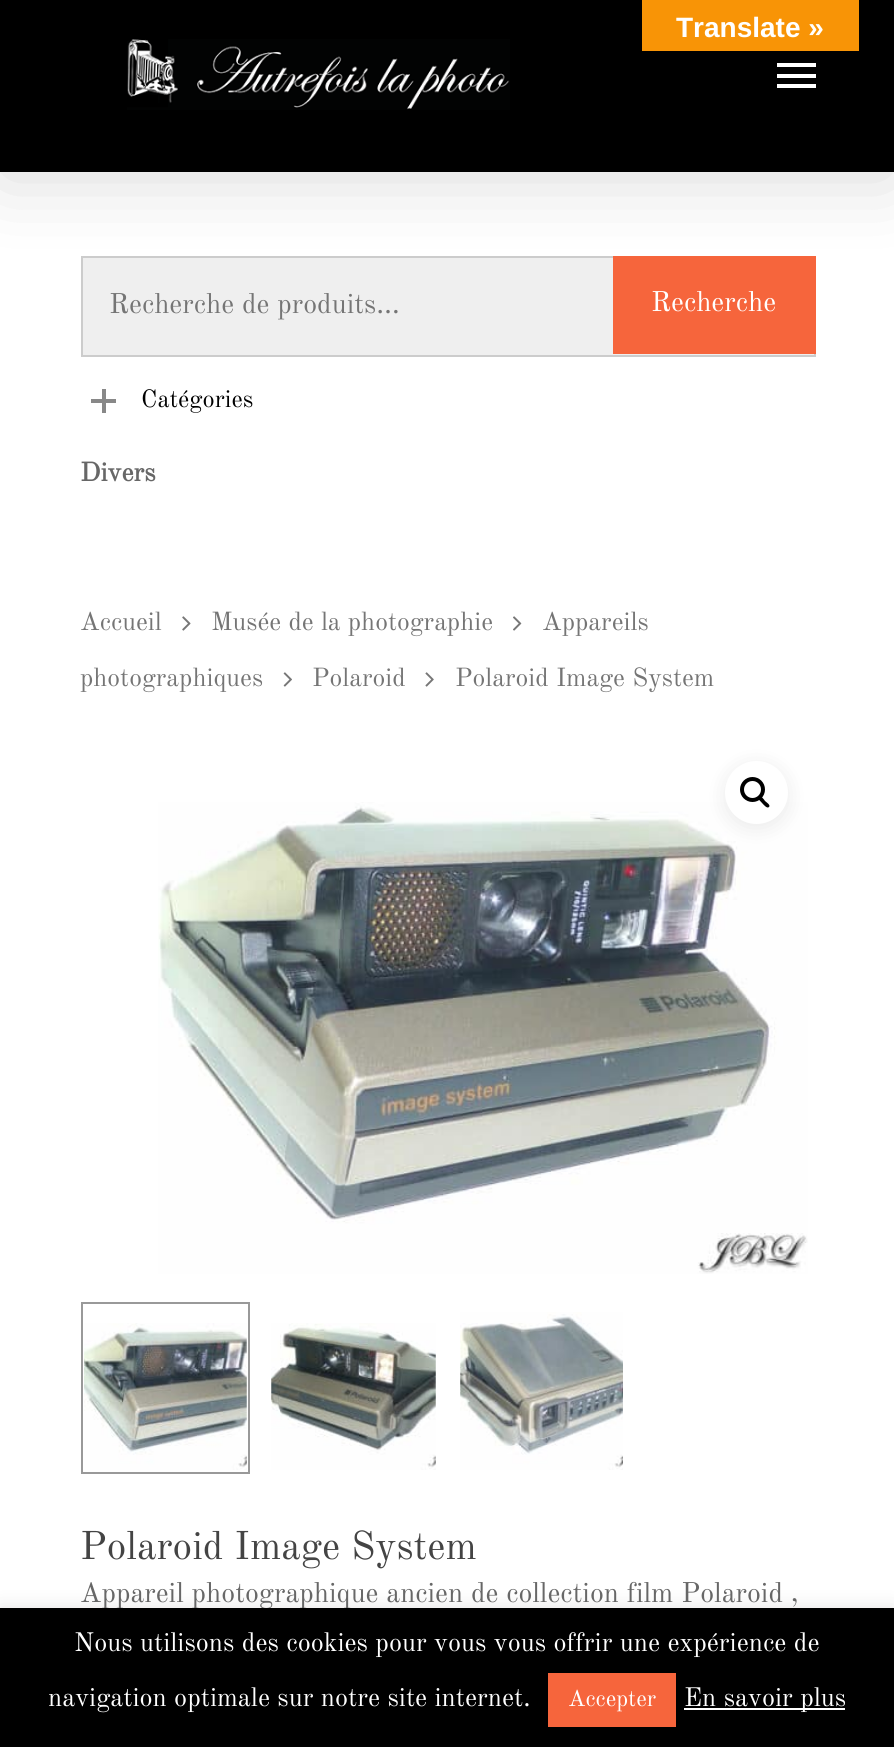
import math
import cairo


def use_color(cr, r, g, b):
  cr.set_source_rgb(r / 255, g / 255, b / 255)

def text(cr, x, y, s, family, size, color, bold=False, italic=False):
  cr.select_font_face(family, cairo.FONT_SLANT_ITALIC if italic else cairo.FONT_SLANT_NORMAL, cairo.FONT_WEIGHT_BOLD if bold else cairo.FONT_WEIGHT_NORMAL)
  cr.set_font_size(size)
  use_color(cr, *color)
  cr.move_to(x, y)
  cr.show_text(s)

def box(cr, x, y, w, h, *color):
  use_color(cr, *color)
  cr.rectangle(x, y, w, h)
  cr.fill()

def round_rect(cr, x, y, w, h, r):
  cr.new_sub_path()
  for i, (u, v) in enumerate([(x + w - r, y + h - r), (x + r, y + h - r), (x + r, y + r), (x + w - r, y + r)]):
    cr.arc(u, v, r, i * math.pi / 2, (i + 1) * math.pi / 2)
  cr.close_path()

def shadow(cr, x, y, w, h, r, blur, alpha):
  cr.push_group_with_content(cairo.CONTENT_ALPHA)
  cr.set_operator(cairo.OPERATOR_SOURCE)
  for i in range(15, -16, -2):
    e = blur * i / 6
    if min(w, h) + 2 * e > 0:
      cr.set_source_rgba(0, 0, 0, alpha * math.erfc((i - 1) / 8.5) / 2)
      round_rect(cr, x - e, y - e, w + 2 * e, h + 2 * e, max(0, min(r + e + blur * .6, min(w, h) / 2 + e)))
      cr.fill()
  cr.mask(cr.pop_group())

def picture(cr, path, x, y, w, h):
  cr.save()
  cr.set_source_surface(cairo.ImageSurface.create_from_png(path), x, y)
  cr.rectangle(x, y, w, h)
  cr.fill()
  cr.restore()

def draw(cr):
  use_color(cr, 255, 255, 255)
  cr.paint()
  use_color(cr, 239, 239, 239)
  cr.rectangle(82, 257, 733, 99)
  cr.fill_preserve()
  use_color(cr, 204, 204, 204)
  cr.stroke()
  box(cr, 613, 256, 203, 98, 246, 101, 60)
  use_color(cr, 0, 0, 0)
  shadow(cr, 0, 5, 894, 172, 0, 39.5, 0.15)
  box(cr, 0, 0, 894, 172, 0, 0, 0)
  picture(cr, "img_01.png", 127, 39, 383, 71)
  box(cr, 777, 63, 39, 4, 255, 255, 255)
  box(cr, 777, 84, 39, 4, 255, 255, 255)
  box(cr, 777, 74, 39, 4, 255, 255, 255)
  box(cr, 642, 0, 217, 51, 248, 148, 6)
  box(cr, 102, 389, 4, 24, 136, 136, 136)
  box(cr, 91, 399, 25, 4, 136, 136, 136)
  picture(cr, "img_02.png", 182, 616, 9, 15)
  picture(cr, "img_03.png", 513, 616, 9, 15)
  picture(cr, "img_04.png", 283, 672, 9, 15)
  picture(cr, "img_05.png", 425, 672, 9, 15)
  picture(cr, "img_06.png", 158, 802, 650, 472)
  use_color(cr, 0, 0, 0)
  shadow(cr, 725, 765, 63, 63, 31.5, 10.5, 0.08)
  use_color(cr, 255, 255, 255)
  cr.arc(756.5, 792.5, 31.5, 0, 2 * math.pi)
  cr.fill()
  cr.arc(752.5, 789.5, 10.5, 0, 2 * math.pi)
  use_color(cr, 0, 0, 0)
  cr.set_line_width(4)
  cr.stroke()
  cr.new_path()
  cr.move_to(759, 797)
  cr.curve_to(761, 795, 764, 799.5, 765, 801)
  cr.curve_to(766, 802, 771, 805, 769, 807)
  cr.curve_to(767, 809, 763.5, 804.5, 762.5, 803.5)
  cr.curve_to(761.5, 802, 757, 799, 759, 797)
  cr.close_path()
  cr.fill()
  cr.rectangle(82, 1303, 167, 170)
  use_color(cr, 153, 153, 153)
  cr.set_line_width(2)
  cr.stroke()
  picture(cr, "img_07.png", 84, 1323, 163, 147)
  picture(cr, "img_08.png", 271, 1323, 165, 147)
  picture(cr, "img_09.png", 460, 1312, 163, 158)
  use_color(cr, 172, 171, 171)
  shadow(cr, 0, 1607, 894, 140, 0, 9, 0.3)
  text(cr, 676, 37, "Translate »", "Liberation Sans", 28, (255, 255, 255), bold=True)
  text(cr, 109, 313, "Recherche de produits…", "Old Standard TT", 28, (117, 117, 117))
  text(cr, 651, 311, "Recherche", "Old Standard TT", 28, (255, 255, 255))
  text(cr, 141, 407, "Catégories", "Old Standard TT", 24.5, (0, 0, 0))
  text(cr, 80, 481, "Divers", "Old Standard TT", 26.25, (103, 103, 103), bold=True)
  text(cr, 80, 630, "Accueil", "Old Standard TT", 25.75, (117, 117, 117))
  text(cr, 211, 630, "Musée de la photographie", "Old Standard TT", 25.75, (117, 117, 117))
  text(cr, 542, 630, "Appareils", "Old Standard TT", 25.75, (117, 117, 117))
  text(cr, 80, 686, "photographiques", "Old Standard TT", 25.75, (117, 117, 117))
  text(cr, 312, 686, "Polaroid", "Old Standard TT", 25.75, (117, 117, 117))
  text(cr, 455, 686, "Polaroid Image System", "Old Standard TT", 25.75, (117, 117, 117))
  text(cr, 80, 1559, "Polaroid Image System", "Old Standard TT", 39.4, (68, 68, 68))
  text(cr, 80, 1602, "Appareil photographique ancien de collection film Polaroid ,", "Old Standard TT", 28, (103, 103, 103))
  box(cr, 0, 1608, 894, 139, 0, 0, 0)
  text(cr, 74, 1651, "Nous utilisons des cookies pour vous vous offrir une expérience de", "Old Standard TT", 26.25, (255, 255, 255))
  text(cr, 48, 1706, "navigation optimale sur notre site internet.", "Old Standard TT", 26.25, (255, 255, 255))
  box(cr, 548, 1673, 128, 54, 246, 101, 60)
  text(cr, 568, 1706, "Accepter", "Old Standard TT", 23, (255, 255, 255))
  box(cr, 684, 1708, 161, 2, 255, 255, 255)
  text(cr, 684, 1706, "En savoir plus", "Old Standard TT", 26.25, (255, 255, 255))


surface = cairo.ImageSurface(cairo.FORMAT_RGB24, 894, 1747)
cr = cairo.Context(surface)
options = cairo.FontOptions()
options.set_hint_metrics(cairo.HINT_METRICS_OFF)
options.set_hint_style(cairo.HINT_STYLE_NONE)
cr.set_font_options(options)
cr.set_miter_limit(4)
draw(cr)
surface.write_to_png("out.png")
